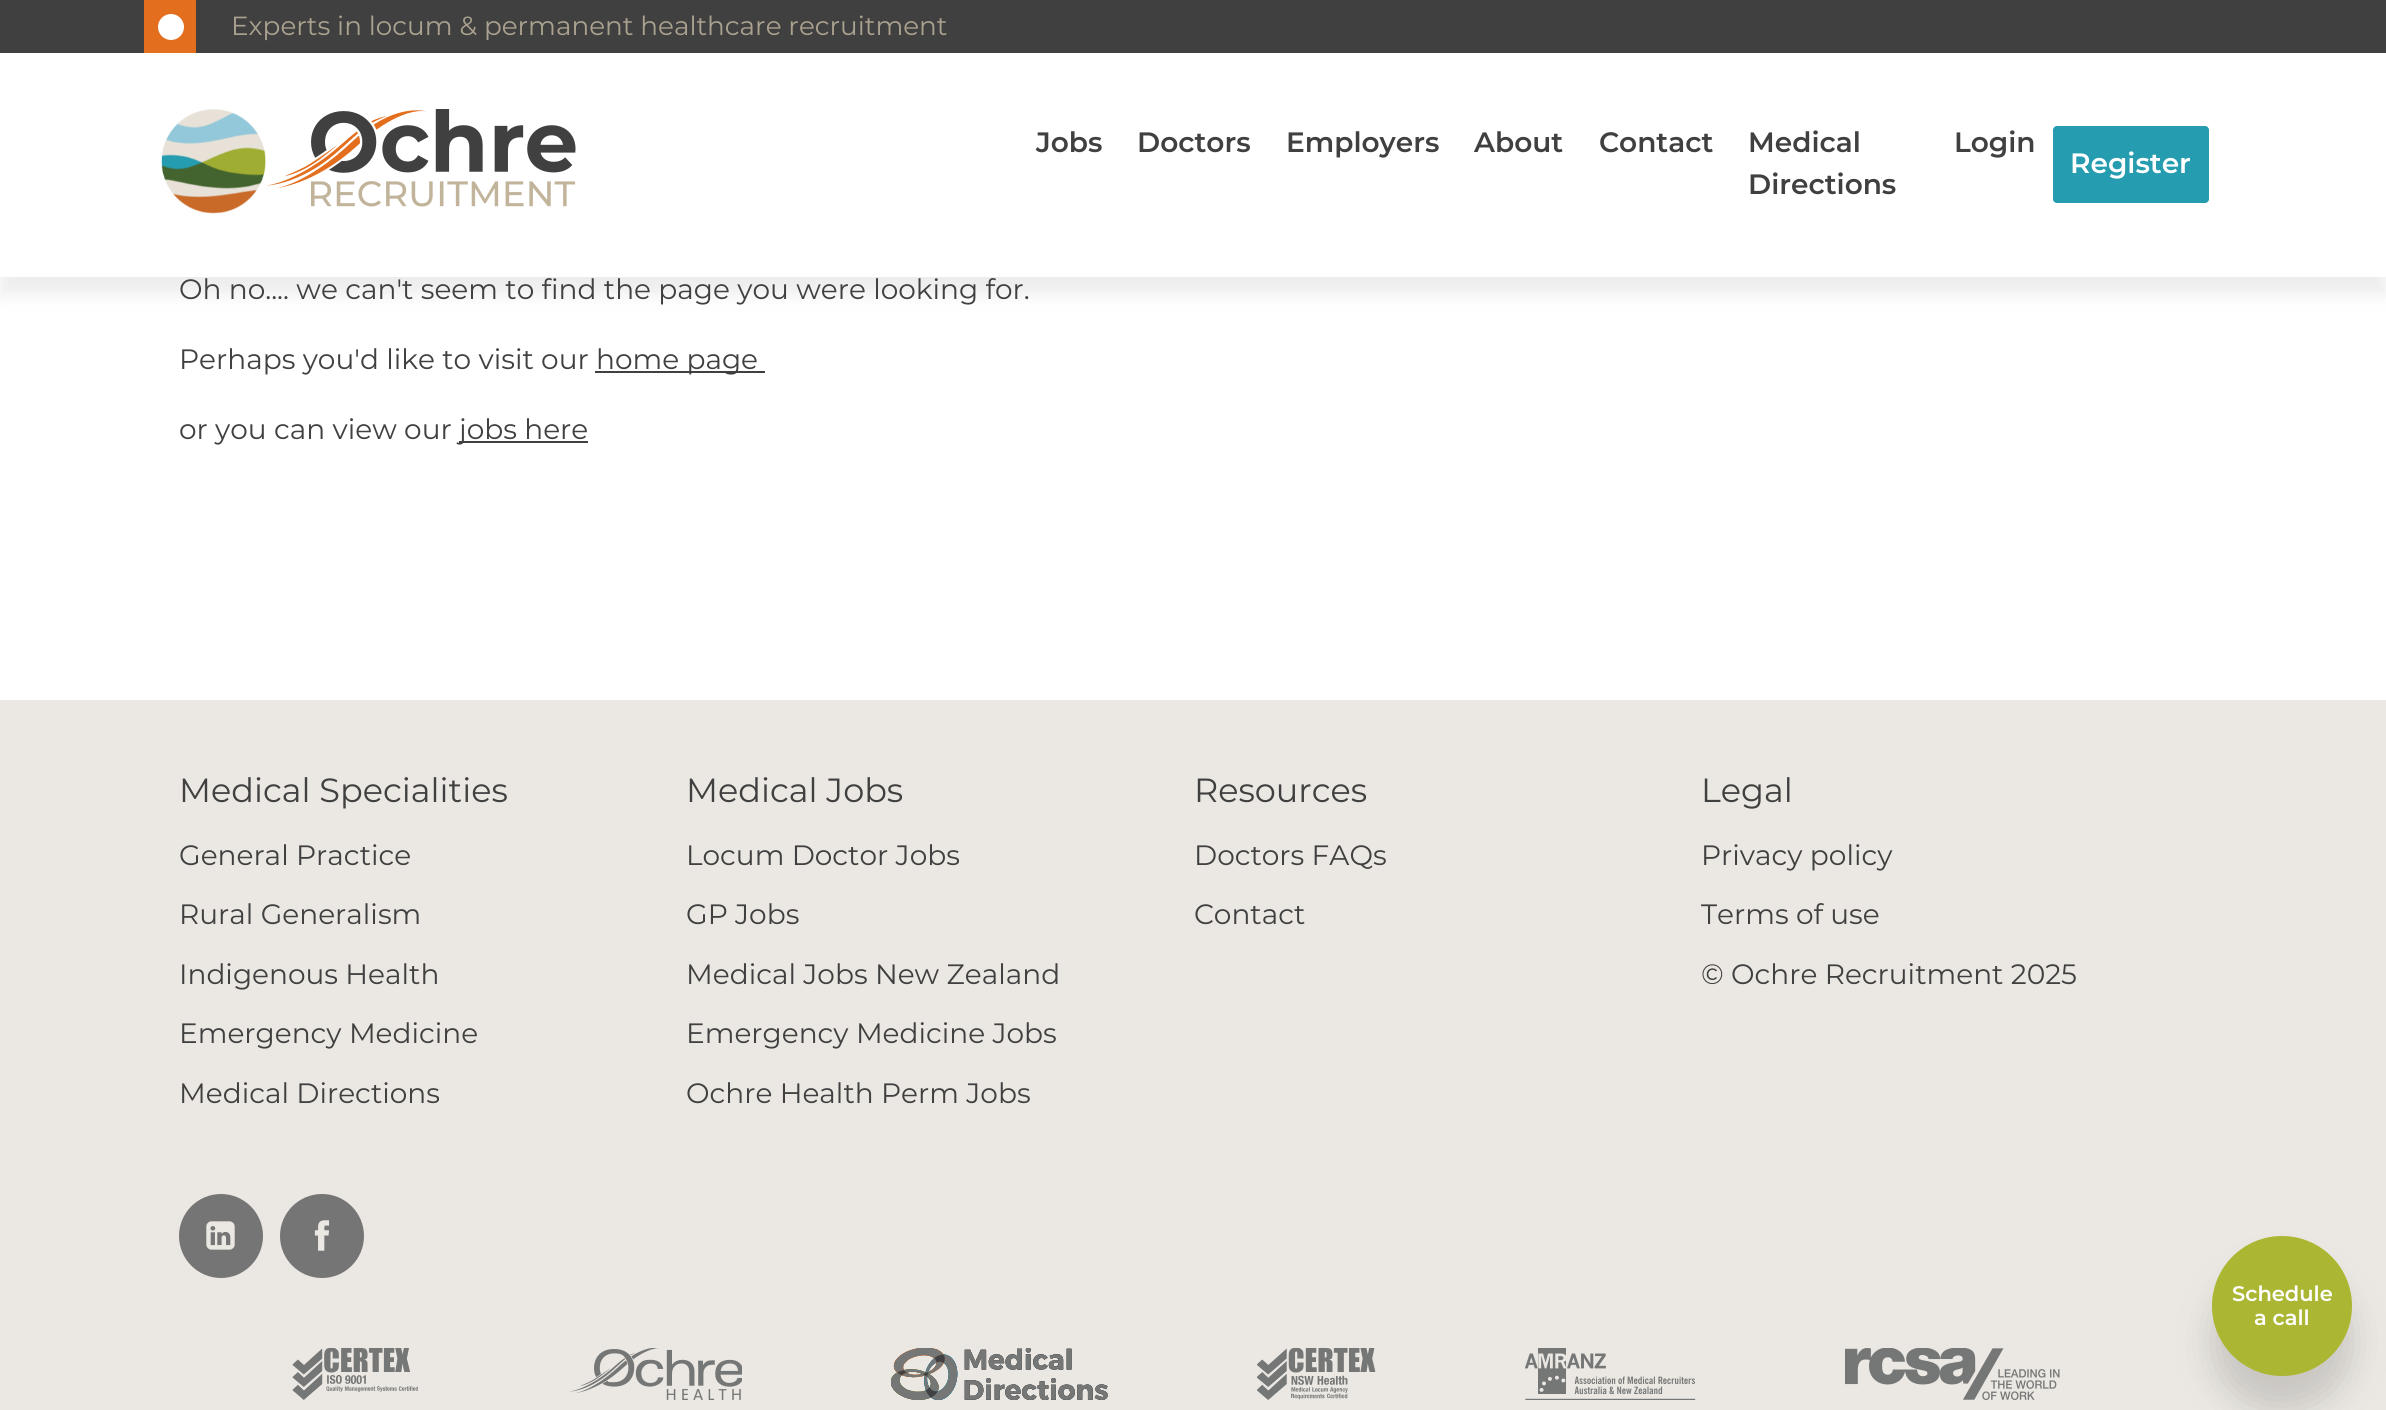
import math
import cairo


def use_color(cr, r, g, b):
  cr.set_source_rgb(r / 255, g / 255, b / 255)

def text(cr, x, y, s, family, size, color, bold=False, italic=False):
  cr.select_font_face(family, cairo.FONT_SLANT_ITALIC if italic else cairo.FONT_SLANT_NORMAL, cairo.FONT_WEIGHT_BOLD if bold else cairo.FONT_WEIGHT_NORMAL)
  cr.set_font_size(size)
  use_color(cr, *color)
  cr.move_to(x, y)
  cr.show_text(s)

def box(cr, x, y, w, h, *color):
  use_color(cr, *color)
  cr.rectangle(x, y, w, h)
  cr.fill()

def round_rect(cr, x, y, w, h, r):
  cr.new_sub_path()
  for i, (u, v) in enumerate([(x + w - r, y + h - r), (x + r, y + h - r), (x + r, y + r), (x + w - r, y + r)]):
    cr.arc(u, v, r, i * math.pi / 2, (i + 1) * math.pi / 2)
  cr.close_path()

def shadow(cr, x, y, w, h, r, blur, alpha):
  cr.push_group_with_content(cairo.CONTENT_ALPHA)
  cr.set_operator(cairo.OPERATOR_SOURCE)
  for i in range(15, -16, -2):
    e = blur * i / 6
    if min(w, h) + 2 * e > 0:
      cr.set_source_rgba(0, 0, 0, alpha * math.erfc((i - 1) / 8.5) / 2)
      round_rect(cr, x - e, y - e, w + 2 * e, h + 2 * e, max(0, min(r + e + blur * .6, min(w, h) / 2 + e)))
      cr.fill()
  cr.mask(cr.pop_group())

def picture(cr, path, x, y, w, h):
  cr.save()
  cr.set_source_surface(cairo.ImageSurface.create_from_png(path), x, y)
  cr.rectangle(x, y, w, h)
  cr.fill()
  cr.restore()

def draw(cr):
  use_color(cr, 255, 255, 255)
  cr.paint()
  use_color(cr, 64, 64, 64)
  shadow(cr, 0, 18, 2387, 276, 0, 9, 0.1)
  box(cr, 0, 53, 2386, 224, 255, 255, 255)
  box(cr, 0, 0, 2386, 53, 64, 64, 64)
  box(cr, 144, 0, 52, 53, 227, 110, 30)
  use_color(cr, 255, 255, 255)
  cr.arc(171, 27, 13, 0, 2 * math.pi)
  cr.fill()
  picture(cr, "img_01.png", 161, 109, 105, 105)
  picture(cr, "img_02.png", 266, 109, 310, 98)
  use_color(cr, 37, 156, 175)
  round_rect(cr, 2053, 126, 156, 77, 4)
  cr.fill()
  box(cr, 595, 371, 170, 2, 64, 64, 64)
  box(cr, 459, 441, 129, 2, 64, 64, 64)
  box(cr, 0, 700, 2386, 710, 235, 232, 227)
  use_color(cr, 117, 117, 117)
  cr.arc(221, 1236, 42, 0, 2 * math.pi)
  cr.fill()
  picture(cr, "img_03.png", 206, 1221, 29, 29)
  cr.arc(322, 1236, 42, 0, 2 * math.pi)
  cr.fill()
  picture(cr, "img_04.png", 314, 1220, 16, 31)
  picture(cr, "img_05.png", 292, 1348, 126, 52)
  picture(cr, "img_06.png", 569, 1348, 173, 52)
  picture(cr, "img_07.png", 891, 1348, 217, 52)
  picture(cr, "img_08.png", 1257, 1348, 119, 52)
  picture(cr, "img_09.png", 1524, 1348, 172, 52)
  picture(cr, "img_10.png", 1845, 1348, 215, 52)
  use_color(cr, 64, 64, 64)
  shadow(cr, 2212, 1271, 140, 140, 70, 17.5, 0.2)
  use_color(cr, 171, 182, 51)
  cr.arc(2282, 1306, 70, 0, 2 * math.pi)
  cr.fill()
  text(cr, 231, 35, "Experts in locum & permanent healthcare recruitment", "Montserrat", 26.25, (170, 161, 143))
  text(cr, 1036, 152, "Jobs", "Montserrat SemiBold", 28, (64, 64, 64))
  text(cr, 1137, 152, "Doctors", "Montserrat SemiBold", 28, (64, 64, 64))
  text(cr, 1286, 152, "Employers", "Montserrat SemiBold", 28, (64, 64, 64))
  text(cr, 1474, 152, "About", "Montserrat SemiBold", 28, (64, 64, 64))
  text(cr, 1599, 152, "Contact", "Montserrat SemiBold", 28, (64, 64, 64))
  text(cr, 1748, 152, "Medical", "Montserrat SemiBold", 28, (64, 64, 64))
  text(cr, 1748, 194, "Directions", "Montserrat SemiBold", 28, (64, 64, 64))
  text(cr, 1954, 152, "Login", "Montserrat SemiBold", 28, (64, 64, 64))
  text(cr, 2070, 173, "Register", "Montserrat SemiBold", 28, (255, 255, 255))
  text(cr, 179, 299, "Oh no.... we can't seem to find the page you were looking for.", "Montserrat", 28, (64, 64, 64))
  text(cr, 179, 369, "Perhaps you'd like to visit our", "Montserrat", 28, (64, 64, 64))
  text(cr, 596, 369, "home page", "Montserrat", 28, (64, 64, 64))
  text(cr, 179, 439, "or you can view our", "Montserrat", 28, (64, 64, 64))
  text(cr, 459, 439, "jobs here", "Montserrat", 28, (64, 64, 64))
  text(cr, 179, 802, "Medical Specialities", "Montserrat", 33.5, (64, 64, 64))
  text(cr, 179, 865, "General Practice", "Montserrat", 28, (64, 64, 64))
  text(cr, 179, 924, "Rural Generalism", "Montserrat", 28, (64, 64, 64))
  text(cr, 179, 984, "Indigenous Health", "Montserrat", 28, (64, 64, 64))
  text(cr, 179, 1043, "Emergency Medicine", "Montserrat", 28, (64, 64, 64))
  text(cr, 179, 1103, "Medical Directions", "Montserrat", 28, (64, 64, 64))
  text(cr, 686, 802, "Medical Jobs", "Montserrat", 33.5, (64, 64, 64))
  text(cr, 686, 865, "Locum Doctor Jobs", "Montserrat", 28, (64, 64, 64))
  text(cr, 686, 924, "GP Jobs", "Montserrat", 28, (64, 64, 64))
  text(cr, 686, 984, "Medical Jobs New Zealand", "Montserrat", 28, (64, 64, 64))
  text(cr, 686, 1043, "Emergency Medicine Jobs", "Montserrat", 28, (64, 64, 64))
  text(cr, 686, 1103, "Ochre Health Perm Jobs", "Montserrat", 28, (64, 64, 64))
  text(cr, 1194, 802, "Resources", "Montserrat", 33.5, (64, 64, 64))
  text(cr, 1194, 865, "Doctors FAQs", "Montserrat", 28, (64, 64, 64))
  text(cr, 1194, 924, "Contact", "Montserrat", 28, (64, 64, 64))
  text(cr, 1701, 802, "Legal", "Montserrat", 33.5, (64, 64, 64))
  text(cr, 1701, 865, "Privacy policy", "Montserrat", 28, (64, 64, 64))
  text(cr, 1701, 924, "Terms of use", "Montserrat", 28, (64, 64, 64))
  text(cr, 1701, 984, "© Ochre Recruitment 2025", "Montserrat", 28, (64, 64, 64))
  text(cr, 2232, 1301, "Schedule", "Montserrat SemiBold", 21, (255, 255, 255))
  text(cr, 2254, 1325, "a call", "Montserrat SemiBold", 21, (255, 255, 255))


surface = cairo.ImageSurface(cairo.FORMAT_RGB24, 2386, 1410)
cr = cairo.Context(surface)
options = cairo.FontOptions()
options.set_hint_metrics(cairo.HINT_METRICS_OFF)
options.set_hint_style(cairo.HINT_STYLE_NONE)
cr.set_font_options(options)
cr.set_miter_limit(4)
draw(cr)
surface.write_to_png("out.png")
